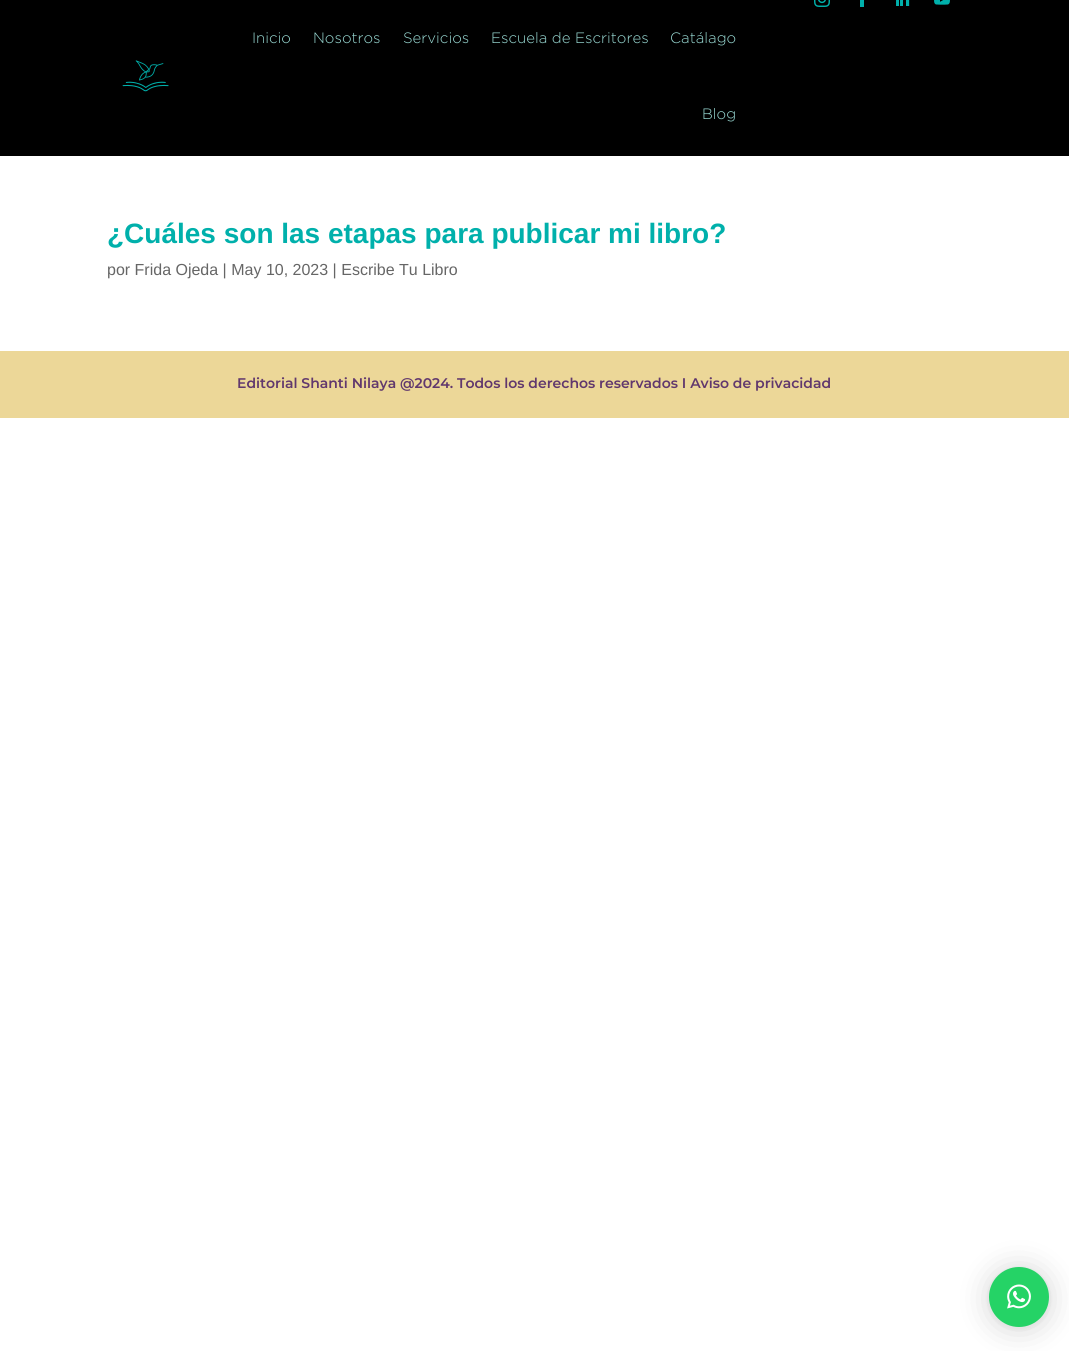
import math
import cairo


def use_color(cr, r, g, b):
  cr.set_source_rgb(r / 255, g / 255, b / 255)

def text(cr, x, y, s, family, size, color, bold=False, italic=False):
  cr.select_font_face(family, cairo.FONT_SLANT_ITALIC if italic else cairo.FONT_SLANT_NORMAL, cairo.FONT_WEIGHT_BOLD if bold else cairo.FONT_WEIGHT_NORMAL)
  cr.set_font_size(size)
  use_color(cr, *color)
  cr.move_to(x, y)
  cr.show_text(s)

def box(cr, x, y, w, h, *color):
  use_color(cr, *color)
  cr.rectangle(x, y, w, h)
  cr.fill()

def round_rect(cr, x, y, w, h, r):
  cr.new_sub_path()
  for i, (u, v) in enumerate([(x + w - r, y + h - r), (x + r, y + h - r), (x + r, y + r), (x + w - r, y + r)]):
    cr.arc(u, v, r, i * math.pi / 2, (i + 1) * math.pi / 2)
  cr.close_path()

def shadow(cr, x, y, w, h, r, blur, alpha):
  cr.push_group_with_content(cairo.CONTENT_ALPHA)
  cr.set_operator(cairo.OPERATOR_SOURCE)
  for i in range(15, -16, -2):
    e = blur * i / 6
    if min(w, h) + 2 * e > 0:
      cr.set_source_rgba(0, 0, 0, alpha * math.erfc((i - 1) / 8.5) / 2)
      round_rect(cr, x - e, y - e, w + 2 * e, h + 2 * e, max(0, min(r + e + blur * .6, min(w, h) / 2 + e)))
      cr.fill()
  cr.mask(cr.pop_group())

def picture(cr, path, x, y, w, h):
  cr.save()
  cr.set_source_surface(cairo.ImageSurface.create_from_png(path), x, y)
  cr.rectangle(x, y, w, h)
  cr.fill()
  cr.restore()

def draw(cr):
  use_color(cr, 255, 255, 255)
  cr.paint()
  box(cr, 0, 0, 1069, 156, 0, 0, 0)
  picture(cr, "img_01.png", 814, 0, 16, 7)
  box(cr, 860, 0, 4, 7, 0, 176, 171)
  picture(cr, "img_02.png", 896, 0, 14, 6)
  picture(cr, "img_03.png", 934, 0, 16, 5)
  picture(cr, "img_04.png", 122, 60, 47, 32)
  box(cr, 0, 351, 1069, 67, 236, 215, 152)
  use_color(cr, 0, 0, 0)
  shadow(cr, 989, 1269, 60, 60, 30, 16, 0.16)
  shadow(cr, 989, 1268, 60, 60, 30, 3, 0.06)
  use_color(cr, 37, 211, 102)
  cr.arc(1019, 1297, 30, 0, 2 * math.pi)
  cr.fill()
  picture(cr, "img_05.png", 1007, 1284, 24, 25)
  text(cr, 252, 43, "Inicio", "Gotham Light", 15, (153, 218, 212))
  text(cr, 313, 43, "Nosotros", "Gotham Light", 15, (153, 218, 212))
  text(cr, 403, 43, "Servicios", "Gotham Light", 15, (153, 218, 212))
  text(cr, 491, 43, "Escuela de Escritores", "Gotham Light", 15, (153, 218, 212))
  text(cr, 670, 43, "Catálago", "Gotham Light", 15, (153, 218, 212))
  text(cr, 702, 119, "Blog", "Gotham Light", 15, (153, 218, 212))
  text(cr, 107, 243, "¿Cuáles son las etapas para publicar mi libro?", "Liberation Sans", 28, (0, 176, 171), bold=True)
  text(cr, 107, 275, "por Frida Ojeda | May 10, 2023 | Escribe Tu Libro", "Liberation Sans", 16, (102, 102, 102))
  text(cr, 237, 388, "Editorial Shanti Nilaya @2024. Todos los derechos reservados I Aviso de privacidad", "Montserrat SemiBold", 14, (97, 56, 109))


surface = cairo.ImageSurface(cairo.FORMAT_RGB24, 1069, 1351)
cr = cairo.Context(surface)
options = cairo.FontOptions()
options.set_hint_metrics(cairo.HINT_METRICS_OFF)
options.set_hint_style(cairo.HINT_STYLE_NONE)
cr.set_font_options(options)
cr.set_miter_limit(4)
draw(cr)
surface.write_to_png("out.png")
